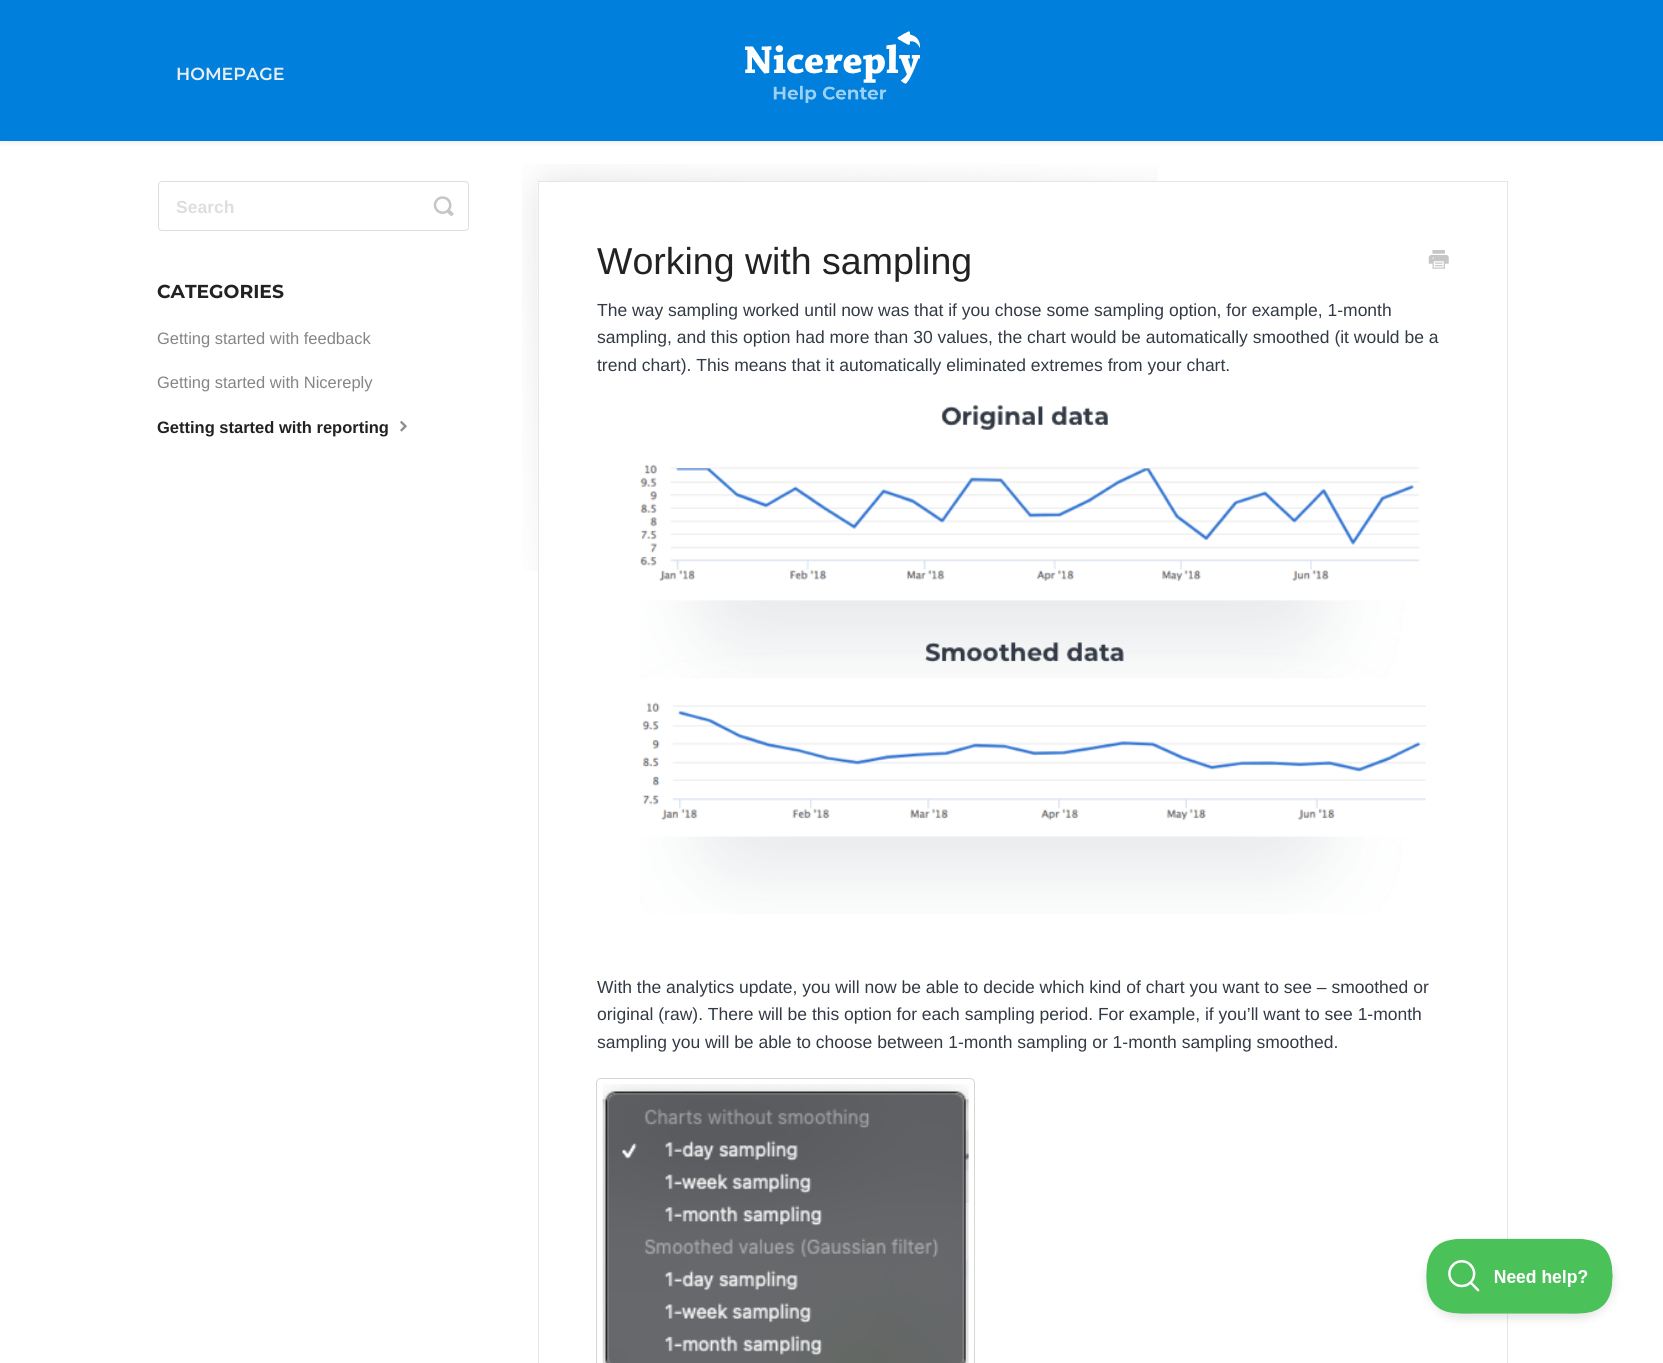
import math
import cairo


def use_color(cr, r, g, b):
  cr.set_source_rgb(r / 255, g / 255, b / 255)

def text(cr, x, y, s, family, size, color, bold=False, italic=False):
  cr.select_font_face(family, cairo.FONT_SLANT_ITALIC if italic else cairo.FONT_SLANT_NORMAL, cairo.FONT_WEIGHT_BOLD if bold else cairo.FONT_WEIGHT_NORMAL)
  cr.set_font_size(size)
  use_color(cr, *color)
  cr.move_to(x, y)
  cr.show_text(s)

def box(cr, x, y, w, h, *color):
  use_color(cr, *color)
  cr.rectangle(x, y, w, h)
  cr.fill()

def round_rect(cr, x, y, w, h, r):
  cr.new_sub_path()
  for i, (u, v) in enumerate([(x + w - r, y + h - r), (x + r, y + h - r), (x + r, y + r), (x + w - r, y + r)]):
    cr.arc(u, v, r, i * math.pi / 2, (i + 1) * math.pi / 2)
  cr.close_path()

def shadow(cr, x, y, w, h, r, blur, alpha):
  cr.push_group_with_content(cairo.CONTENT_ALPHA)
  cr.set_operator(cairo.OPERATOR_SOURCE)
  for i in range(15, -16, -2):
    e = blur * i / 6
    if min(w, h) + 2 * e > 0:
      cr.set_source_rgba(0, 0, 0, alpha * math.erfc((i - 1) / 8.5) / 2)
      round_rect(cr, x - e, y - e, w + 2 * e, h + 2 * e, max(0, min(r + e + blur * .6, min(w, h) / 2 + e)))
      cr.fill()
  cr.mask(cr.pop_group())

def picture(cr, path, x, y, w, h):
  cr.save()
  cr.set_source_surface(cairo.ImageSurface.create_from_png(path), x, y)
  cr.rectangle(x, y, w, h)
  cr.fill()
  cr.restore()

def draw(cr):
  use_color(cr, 255, 255, 255)
  cr.paint()
  use_color(cr, 0, 0, 0)
  shadow(cr, 0, 1, 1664, 142, 0, 2.5, 0.07)
  box(cr, 0, 0, 1663, 141, 0, 128, 220)
  picture(cr, "img_01.png", 745, 31, 175, 72)
  round_rect(cr, 158.5, 181.5, 310, 49, 3.5)
  use_color(cr, 222, 222, 222)
  cr.set_line_width(1)
  cr.stroke()
  picture(cr, "img_02.png", 433, 196, 21, 21)
  picture(cr, "img_03.png", 400, 420, 7, 12)
  picture(cr, "img_04.png", 522, 164, 636, 407)
  cr.rectangle(538.5, 181.5, 969, 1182)
  use_color(cr, 233, 229, 229)
  cr.stroke()
  picture(cr, "img_05.png", 1428, 250, 21, 19)
  picture(cr, "img_06.png", 640, 405, 786, 509)
  round_rect(cr, 596.5, 1078.5, 378, 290, 4.5)
  use_color(cr, 214, 214, 214)
  cr.stroke()
  picture(cr, "img_07.png", 602, 1084, 367, 279)
  use_color(cr, 0, 0, 0)
  shadow(cr, 1426, 1244, 188, 75, 37.5, 4.5, 0.1)
  picture(cr, "img_08.png", 1426, 1238, 187, 76)
  text(cr, 176, 80, "HOMEPAGE", "Montserrat SemiBold", 17.5, (233, 237, 240))
  text(cr, 176, 213, "Search", "Liberation Sans", 17.5, (222, 222, 222), bold=True)
  text(cr, 157, 298, "CATEGORIES", "Montserrat", 18.75, (34, 34, 34), bold=True)
  text(cr, 157, 344, "Getting started with feedback", "Liberation Sans", 16.5, (133, 133, 133))
  text(cr, 157, 388, "Getting started with Nicereply", "Liberation Sans", 16.5, (133, 133, 133))
  text(cr, 157, 433, "Getting started with reporting", "Liberation Sans", 16.5, (34, 34, 34), bold=True)
  text(cr, 597, 274, "Working with sampling", "Liberation Sans", 37.5, (34, 34, 34))
  text(cr, 597, 316, "The way sampling worked until now was that if you chose some sampling option, for example, 1-month", "Liberation Sans", 17.5, (50, 58, 69))
  text(cr, 597, 343, "sampling, and this option had more than 30 values, the chart would be automatically smoothed (it would be a", "Liberation Sans", 17.5, (50, 58, 69))
  text(cr, 597, 371, "trend chart). This means that it automatically eliminated extremes from your chart.", "Liberation Sans", 17.5, (50, 58, 69))
  text(cr, 597, 993, "With the analytics update, you will now be able to decide which kind of chart you want to see – smoothed or", "Liberation Sans", 17.5, (50, 58, 69))
  text(cr, 597, 1020, "original (raw). There will be this option for each sampling period. For example, if you’ll want to see 1-month", "Liberation Sans", 17.5, (50, 58, 69))
  text(cr, 597, 1048, "sampling you will be able to choose between 1-month sampling or 1-month sampling smoothed.", "Liberation Sans", 17.5, (50, 58, 69))


surface = cairo.ImageSurface(cairo.FORMAT_RGB24, 1663, 1363)
cr = cairo.Context(surface)
options = cairo.FontOptions()
options.set_hint_metrics(cairo.HINT_METRICS_OFF)
options.set_hint_style(cairo.HINT_STYLE_NONE)
cr.set_font_options(options)
cr.set_miter_limit(4)
draw(cr)
surface.write_to_png("out.png")
